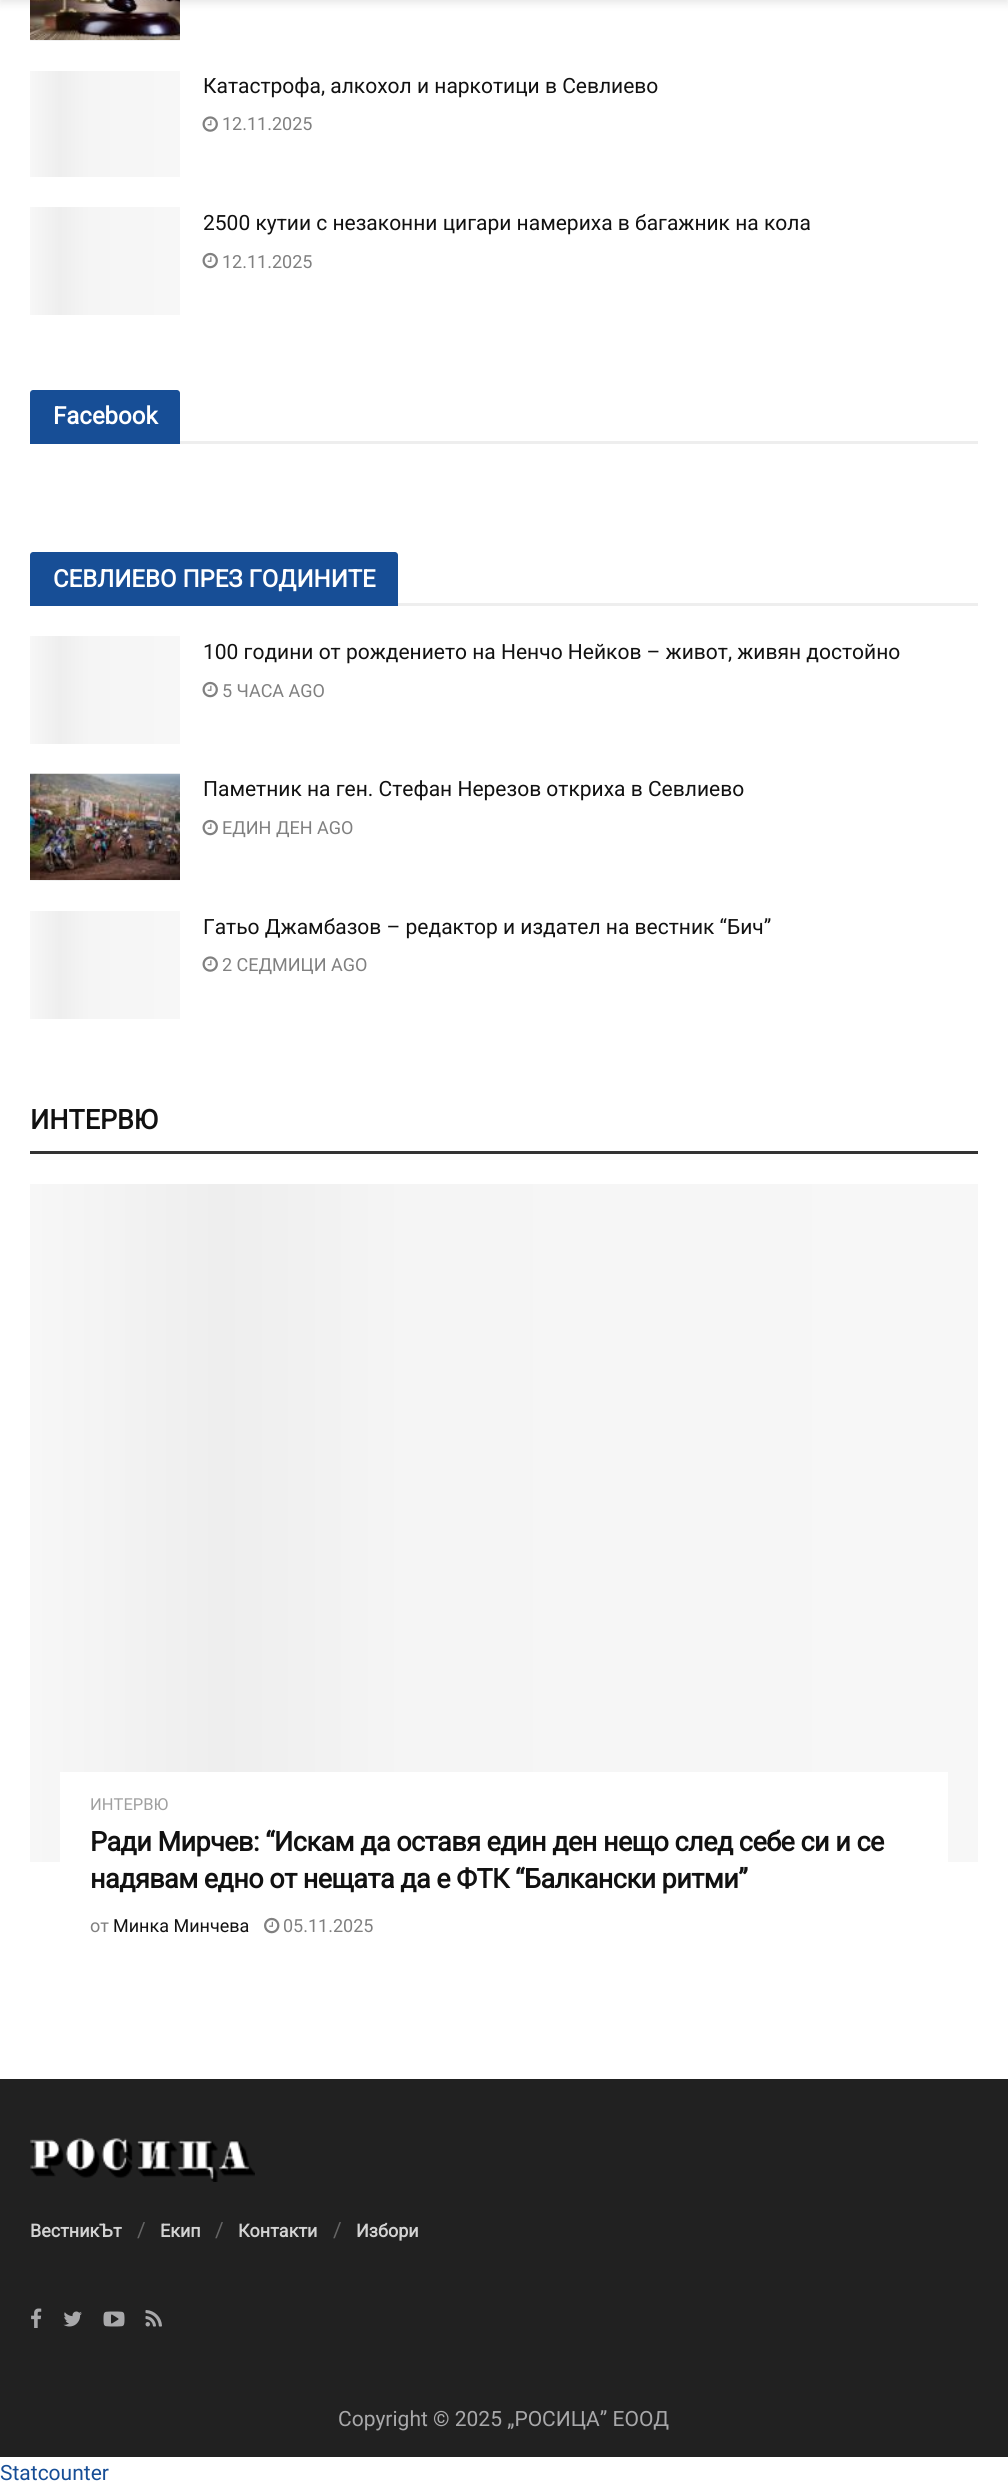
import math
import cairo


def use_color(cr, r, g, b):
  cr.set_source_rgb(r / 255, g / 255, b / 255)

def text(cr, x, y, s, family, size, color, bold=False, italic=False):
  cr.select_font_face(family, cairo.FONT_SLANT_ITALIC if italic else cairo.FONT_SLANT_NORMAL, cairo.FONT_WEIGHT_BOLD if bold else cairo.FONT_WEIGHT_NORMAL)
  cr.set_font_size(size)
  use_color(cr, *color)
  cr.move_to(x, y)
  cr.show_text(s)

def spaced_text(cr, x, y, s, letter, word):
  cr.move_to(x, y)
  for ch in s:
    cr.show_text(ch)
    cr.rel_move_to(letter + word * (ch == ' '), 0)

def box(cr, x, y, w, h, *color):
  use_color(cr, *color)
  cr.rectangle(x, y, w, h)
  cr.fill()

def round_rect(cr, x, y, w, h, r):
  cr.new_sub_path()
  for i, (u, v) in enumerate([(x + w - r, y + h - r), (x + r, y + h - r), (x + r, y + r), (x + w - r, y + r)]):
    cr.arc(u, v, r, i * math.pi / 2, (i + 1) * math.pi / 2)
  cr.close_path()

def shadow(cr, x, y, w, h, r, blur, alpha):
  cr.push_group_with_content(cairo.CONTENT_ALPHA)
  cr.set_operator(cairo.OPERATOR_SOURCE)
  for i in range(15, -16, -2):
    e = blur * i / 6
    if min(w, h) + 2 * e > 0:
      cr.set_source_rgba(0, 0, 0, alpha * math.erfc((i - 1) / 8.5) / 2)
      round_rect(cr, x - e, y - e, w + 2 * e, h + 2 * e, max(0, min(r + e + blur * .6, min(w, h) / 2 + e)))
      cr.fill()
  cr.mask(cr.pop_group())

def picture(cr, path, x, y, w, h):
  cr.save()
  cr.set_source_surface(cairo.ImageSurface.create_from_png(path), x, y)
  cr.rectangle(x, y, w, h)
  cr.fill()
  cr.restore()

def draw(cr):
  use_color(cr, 255, 255, 255)
  cr.paint()
  picture(cr, "img_01.png", 30, 0, 150, 40)
  use_color(cr, 0, 0, 0)
  shadow(cr, 0, -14, 1008, 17, 0, 4.5, 0.1)
  gradient = cairo.LinearGradient(30, -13, 180, -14)
  gradient.add_color_stop_rgba(0, 0.969, 0.969, 0.969, 1)
  gradient.add_color_stop_rgba(0.2, 0.933, 0.933, 0.933, 1)
  gradient.add_color_stop_rgba(0.4, 0.961, 0.961, 0.961, 1)
  gradient.add_color_stop_rgba(1, 0.969, 0.969, 0.969, 1)
  cr.set_source(gradient)
  cr.rectangle(30, 40, 150, 1)
  cr.fill()
  gradient = cairo.LinearGradient(30, 124, 180, 124)
  gradient.add_color_stop_rgba(0, 0.969, 0.969, 0.969, 1)
  gradient.add_color_stop_rgba(0.2, 0.933, 0.933, 0.933, 1)
  gradient.add_color_stop_rgba(0.4, 0.961, 0.961, 0.961, 1)
  gradient.add_color_stop_rgba(1, 0.969, 0.969, 0.969, 1)
  cr.set_source(gradient)
  cr.rectangle(30, 71, 150, 106)
  cr.fill()
  picture(cr, "img_02.png", 202, 116, 16, 16)
  gradient = cairo.LinearGradient(30, 261, 180, 261)
  gradient.add_color_stop_rgba(0, 0.969, 0.969, 0.969, 1)
  gradient.add_color_stop_rgba(0.2, 0.933, 0.933, 0.933, 1)
  gradient.add_color_stop_rgba(0.4, 0.961, 0.961, 0.961, 1)
  gradient.add_color_stop_rgba(1, 0.969, 0.969, 0.969, 1)
  cr.set_source(gradient)
  cr.rectangle(30, 207, 150, 108)
  cr.fill()
  picture(cr, "img_03.png", 202, 252, 16, 17)
  box(cr, 180, 441, 798, 3, 238, 238, 238)
  use_color(cr, 23, 78, 150)
  cr.new_path()
  cr.move_to(33, 390)
  cr.line_to(177, 390)
  cr.curve_to(178.5, 390, 180, 391.5, 180, 393)
  cr.line_to(180, 444)
  cr.line_to(30, 444)
  cr.line_to(30, 393)
  cr.curve_to(30, 391.5, 31.5, 390, 33, 390)
  cr.close_path()
  cr.fill()
  box(cr, 398, 603, 580, 3, 238, 238, 238)
  use_color(cr, 23, 78, 150)
  cr.new_path()
  cr.move_to(33, 552)
  cr.line_to(395, 552)
  cr.curve_to(396.5, 552, 398, 553.5, 398, 555)
  cr.line_to(398, 606)
  cr.line_to(30, 606)
  cr.line_to(30, 555)
  cr.curve_to(30, 553.5, 31.5, 552, 33, 552)
  cr.close_path()
  cr.fill()
  gradient = cairo.LinearGradient(30, 690, 180, 690)
  gradient.add_color_stop_rgba(0, 0.969, 0.969, 0.969, 1)
  gradient.add_color_stop_rgba(0.2, 0.933, 0.933, 0.933, 1)
  gradient.add_color_stop_rgba(0.4, 0.961, 0.961, 0.961, 1)
  gradient.add_color_stop_rgba(1, 0.969, 0.969, 0.969, 1)
  cr.set_source(gradient)
  cr.rectangle(30, 636, 150, 108)
  cr.fill()
  picture(cr, "img_03.png", 202, 681, 16, 17)
  picture(cr, "img_04.png", 30, 773, 150, 107)
  gradient = cairo.LinearGradient(30, 827, 180, 827)
  gradient.add_color_stop_rgba(0, 0.969, 0.969, 0.969, 1)
  gradient.add_color_stop_rgba(0.2, 0.933, 0.933, 0.933, 1)
  gradient.add_color_stop_rgba(0.4, 0.961, 0.961, 0.961, 1)
  gradient.add_color_stop_rgba(1, 0.969, 0.969, 0.969, 1)
  cr.set_source(gradient)
  cr.rectangle(30, 880, 150, 1)
  cr.fill()
  picture(cr, "img_03.png", 202, 819, 16, 17)
  gradient = cairo.LinearGradient(30, 965, 180, 965)
  gradient.add_color_stop_rgba(0, 0.969, 0.969, 0.969, 1)
  gradient.add_color_stop_rgba(0.2, 0.933, 0.933, 0.933, 1)
  gradient.add_color_stop_rgba(0.4, 0.961, 0.961, 0.961, 1)
  gradient.add_color_stop_rgba(1, 0.969, 0.969, 0.969, 1)
  cr.set_source(gradient)
  cr.rectangle(30, 911, 150, 108)
  cr.fill()
  picture(cr, "img_02.png", 202, 956, 16, 16)
  box(cr, 30, 1151, 948, 3, 51, 51, 51)
  gradient = cairo.LinearGradient(30, 1523, 978, 1523)
  gradient.add_color_stop_rgba(0, 0.969, 0.969, 0.969, 1)
  gradient.add_color_stop_rgba(0.2, 0.933, 0.933, 0.933, 1)
  gradient.add_color_stop_rgba(0.4, 0.961, 0.961, 0.961, 1)
  gradient.add_color_stop_rgba(1, 0.969, 0.969, 0.969, 1)
  cr.set_source(gradient)
  cr.rectangle(30, 1184, 948, 678)
  cr.fill()
  box(cr, 60, 1772, 888, 90, 255, 255, 255)
  picture(cr, "img_05.png", 264, 1917, 16, 17)
  box(cr, 0, 2079, 1008, 378, 33, 33, 33)
  picture(cr, "img_06.png", 30, 2138, 225, 44)
  picture(cr, "img_07.png", 31, 2308, 11, 20)
  picture(cr, "img_08.png", 63, 2311, 19, 16)
  picture(cr, "img_09.png", 103, 2311, 22, 16)
  picture(cr, "img_10.png", 145, 2310, 17, 17)
  text(cr, 203, 93, "Катастрофа, алкохол и наркотици в Севлиево", "Roboto", 21, (17, 17, 17))
  text(cr, 222, 130, "12.11.2025", "Roboto", 18, (128, 128, 128))
  text(cr, 203, 230, "2500 кутии с незаконни цигари намериха в багажник на кола", "Roboto", 21, (17, 17, 17))
  text(cr, 222, 268, "12.11.2025", "Roboto", 18, (128, 128, 128))
  text(cr, 53, 424, "Facebook", "Roboto", 24, (255, 255, 255), bold=True)
  text(cr, 53, 587, "СЕВЛИЕВО ПРЕЗ ГОДИНИТЕ", "Roboto", 24, (255, 255, 255), bold=True)
  text(cr, 203, 659, "100 години от рождението на Ненчо Нейков – живот, живян достойно", "Roboto", 21, (17, 17, 17))
  text(cr, 222, 697, "5 ЧАСА AGO", "Roboto", 18, (128, 128, 128))
  text(cr, 203, 796, "Паметник на ген. Стефан Нерезов откриха в Севлиево", "Roboto", 21, (17, 17, 17))
  text(cr, 222, 834, "ЕДИН ДЕН AGO", "Roboto", 18, (128, 128, 128))
  text(cr, 203, 934, "Гатьо Джамбазов – редактор и издател на вестник “Бич”", "Roboto", 21, (17, 17, 17))
  text(cr, 222, 971, "2 СЕДМИЦИ AGO", "Roboto", 18, (128, 128, 128))
  text(cr, 30, 1129, "ИНТЕРВЮ", "Roboto", 27, (17, 17, 17), bold=True)
  text(cr, 90, 1810, "ИНТЕРВЮ", "Roboto", 16.5, (160, 160, 160))
  cr.select_font_face("Roboto", cairo.FONT_SLANT_NORMAL, cairo.FONT_WEIGHT_BOLD)
  cr.set_font_size(27)
  use_color(cr, 17, 17, 17)
  spaced_text(cr, 90, 1851, "Ради Мирчев: “Искам да оставя един ден нещо след себе си и се", -0.55, 0)
  spaced_text(cr, 90, 1888, "надявам едно от нещата да е ФТК “Балкански ритми”", -0.55, 0)
  text(cr, 90, 1932, "от", "Roboto", 18, (128, 128, 128))
  text(cr, 113, 1932, "Минка Минчева", "Roboto", 18, (17, 17, 17))
  text(cr, 283, 1932, "05.11.2025", "Roboto", 18, (128, 128, 128))
  text(cr, 30, 2237, "ВестникЪт", "Roboto", 18, (211, 211, 211), bold=True)
  text(cr, 137, 2237, "/", "Roboto", 21, (100, 100, 100))
  text(cr, 160, 2237, "Екип", "Roboto", 18, (211, 211, 211), bold=True)
  text(cr, 215, 2237, "/", "Roboto", 21, (100, 100, 100))
  text(cr, 238, 2237, "Контакти", "Roboto", 18, (211, 211, 211), bold=True)
  text(cr, 333, 2237, "/", "Roboto", 21, (100, 100, 100))
  text(cr, 356, 2237, "Избори", "Roboto", 18, (211, 211, 211), bold=True)
  text(cr, 338, 2426, "Copyright © 2025 „РОСИЦА” ЕООД", "Roboto", 21, (168, 168, 170))
  text(cr, 0, 2480, "Statcounter", "Roboto", 21, (23, 78, 150))


surface = cairo.ImageSurface(cairo.FORMAT_RGB24, 1008, 2489)
cr = cairo.Context(surface)
options = cairo.FontOptions()
options.set_hint_metrics(cairo.HINT_METRICS_OFF)
options.set_hint_style(cairo.HINT_STYLE_NONE)
cr.set_font_options(options)
cr.set_miter_limit(4)
draw(cr)
surface.write_to_png("out.png")
